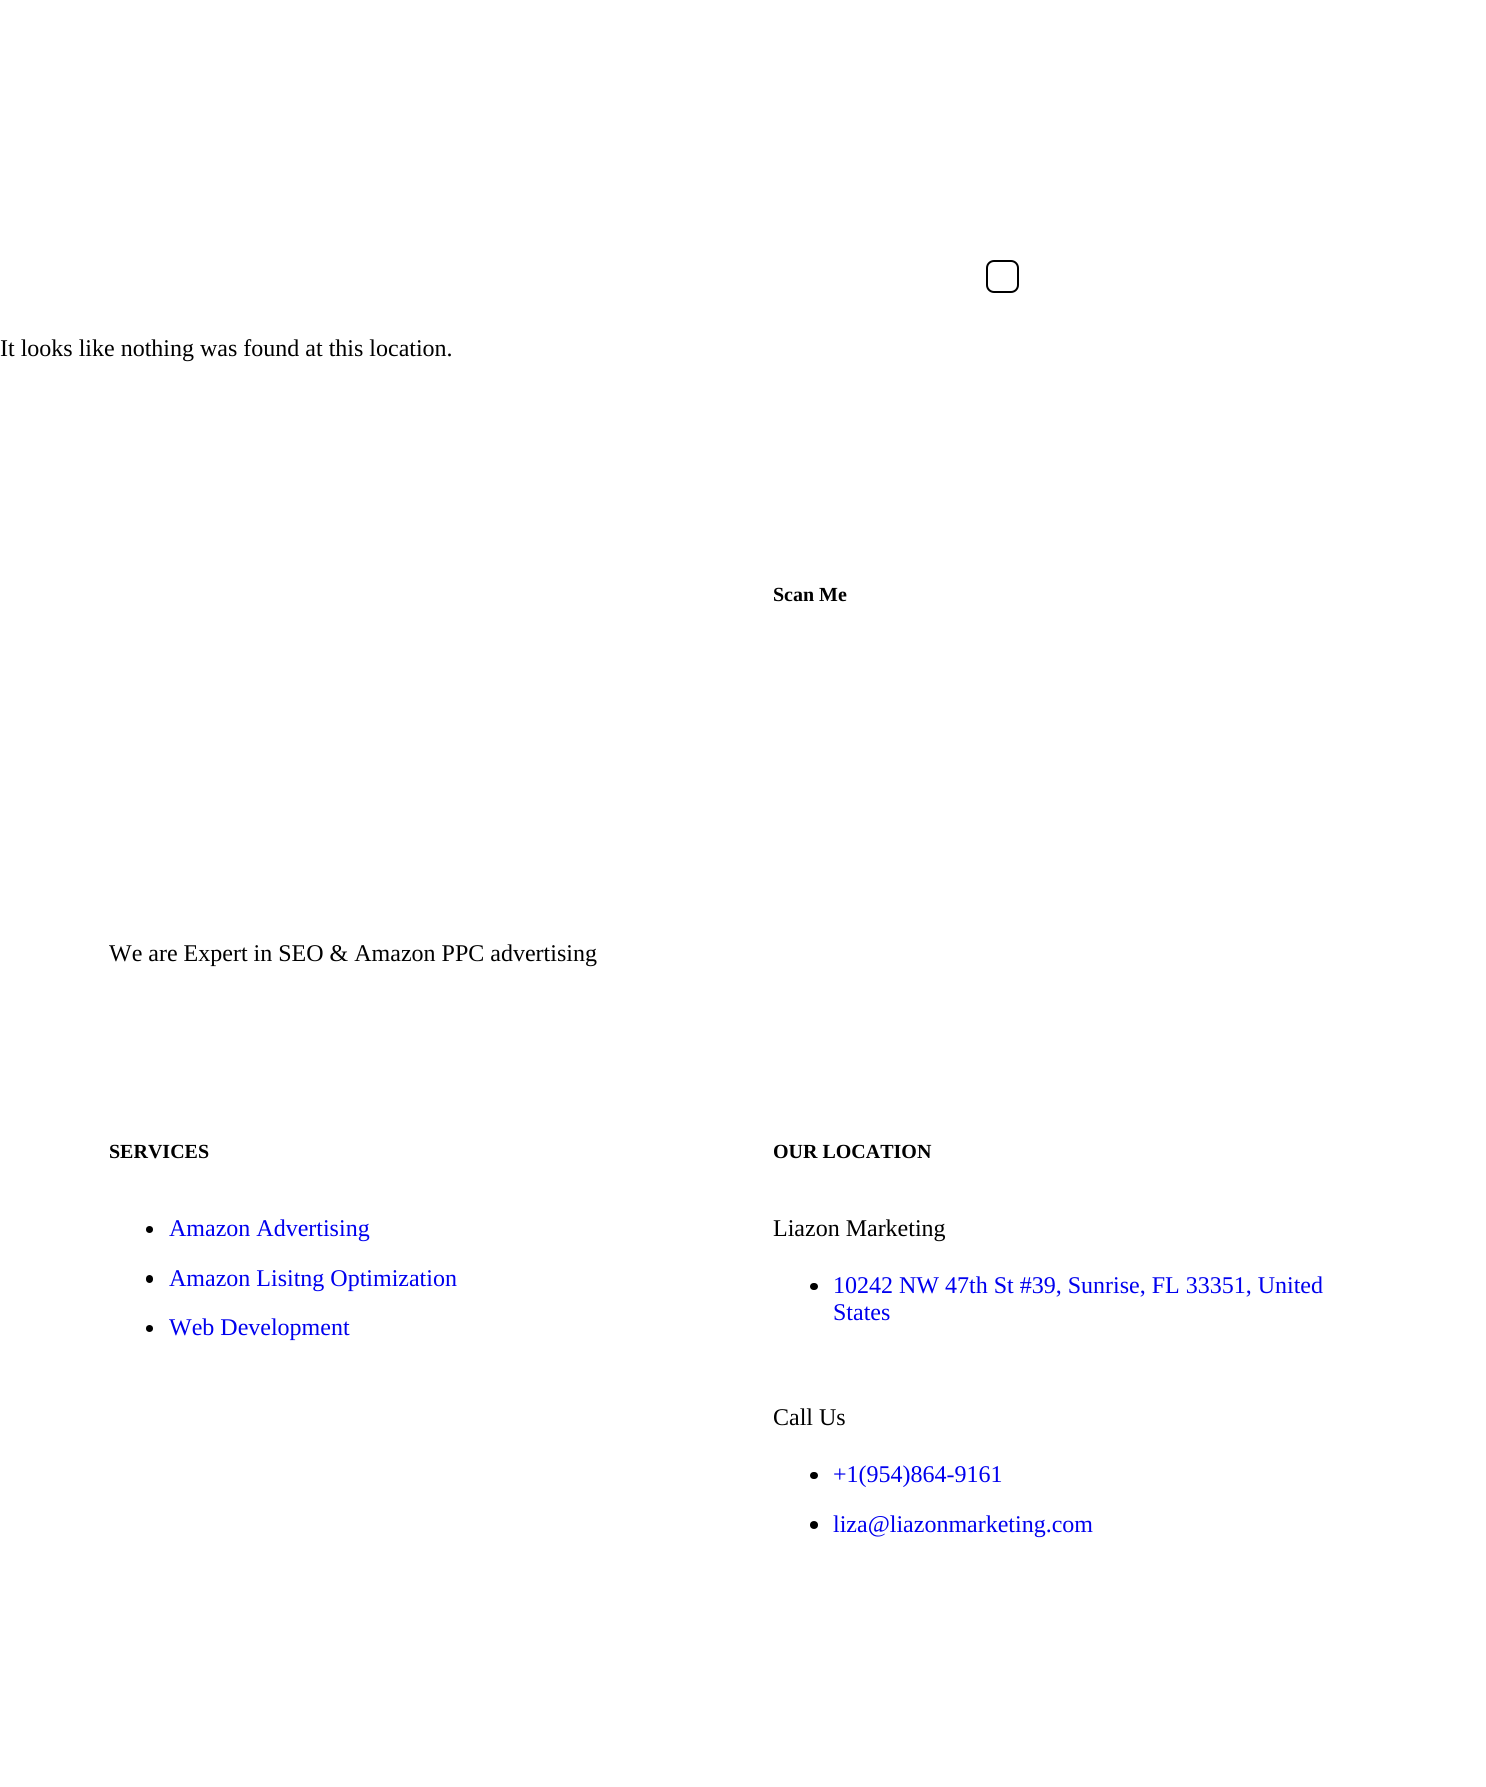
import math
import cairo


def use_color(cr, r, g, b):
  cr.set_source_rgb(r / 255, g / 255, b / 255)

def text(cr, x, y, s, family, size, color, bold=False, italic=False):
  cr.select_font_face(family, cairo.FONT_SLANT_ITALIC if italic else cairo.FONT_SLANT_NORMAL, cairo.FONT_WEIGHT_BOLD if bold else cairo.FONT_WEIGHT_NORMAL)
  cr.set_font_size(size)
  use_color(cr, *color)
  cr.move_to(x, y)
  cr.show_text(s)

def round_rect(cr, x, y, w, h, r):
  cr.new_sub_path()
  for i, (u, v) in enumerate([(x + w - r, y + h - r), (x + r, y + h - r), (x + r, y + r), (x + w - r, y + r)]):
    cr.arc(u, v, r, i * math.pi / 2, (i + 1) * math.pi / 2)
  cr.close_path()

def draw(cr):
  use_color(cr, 255, 255, 255)
  cr.paint()
  round_rect(cr, 987, 261, 31, 31, 7)
  use_color(cr, 0, 0, 0)
  cr.stroke()
  cr.arc(149.5, 1229.5, 3.5, 0, 2 * math.pi)
  cr.fill()
  round_rect(cr, 146, 1275, 7, 8, 3.5)
  cr.fill()
  cr.arc(149.5, 1328.5, 3.5, 0, 2 * math.pi)
  cr.fill()
  round_rect(cr, 810, 1283, 8, 7, 3.5)
  cr.fill()
  round_rect(cr, 810, 1472, 8, 7, 3.5)
  cr.fill()
  cr.arc(814, 1525, 4, 0, 2 * math.pi)
  cr.fill()
  text(cr, 0, 356, "It looks like nothing was found at this location.", "Liberation Serif", 24, (0, 0, 0))
  text(cr, 773, 601, "Scan Me", "Liberation Serif", 20, (0, 0, 0), bold=True)
  text(cr, 109, 961, "We are Expert in SEO & Amazon PPC advertising", "Liberation Serif", 24, (0, 0, 0))
  text(cr, 109, 1158, "SERVICES", "Liberation Serif", 20, (0, 0, 0), bold=True)
  text(cr, 169, 1236, "Amazon Advertising", "Liberation Serif", 24, (0, 0, 238))
  text(cr, 169, 1286, "Amazon Lisitng Optimization", "Liberation Serif", 24, (0, 0, 238))
  text(cr, 169, 1335, "Web Development", "Liberation Serif", 24, (0, 0, 238))
  text(cr, 773, 1158, "OUR LOCATION", "Liberation Serif", 20, (0, 0, 0), bold=True)
  text(cr, 773, 1236, "Liazon Marketing", "Liberation Serif", 24, (0, 0, 0))
  text(cr, 833, 1293, "10242 NW 47th St #39, Sunrise, FL 33351, United", "Liberation Serif", 24, (0, 0, 238))
  text(cr, 833, 1320, "States", "Liberation Serif", 24, (0, 0, 238))
  text(cr, 773, 1425, "Call Us", "Liberation Serif", 24, (0, 0, 0))
  text(cr, 833, 1482, "+1(954)864-9161", "Liberation Serif", 24, (0, 0, 238))
  text(cr, 833, 1532, "liza@liazonmarketing.com", "Liberation Serif", 24, (0, 0, 238))


surface = cairo.ImageSurface(cairo.FORMAT_RGB24, 1486, 1787)
cr = cairo.Context(surface)
options = cairo.FontOptions()
options.set_hint_metrics(cairo.HINT_METRICS_OFF)
options.set_hint_style(cairo.HINT_STYLE_NONE)
cr.set_font_options(options)
cr.set_miter_limit(4)
draw(cr)
surface.write_to_png("out.png")
